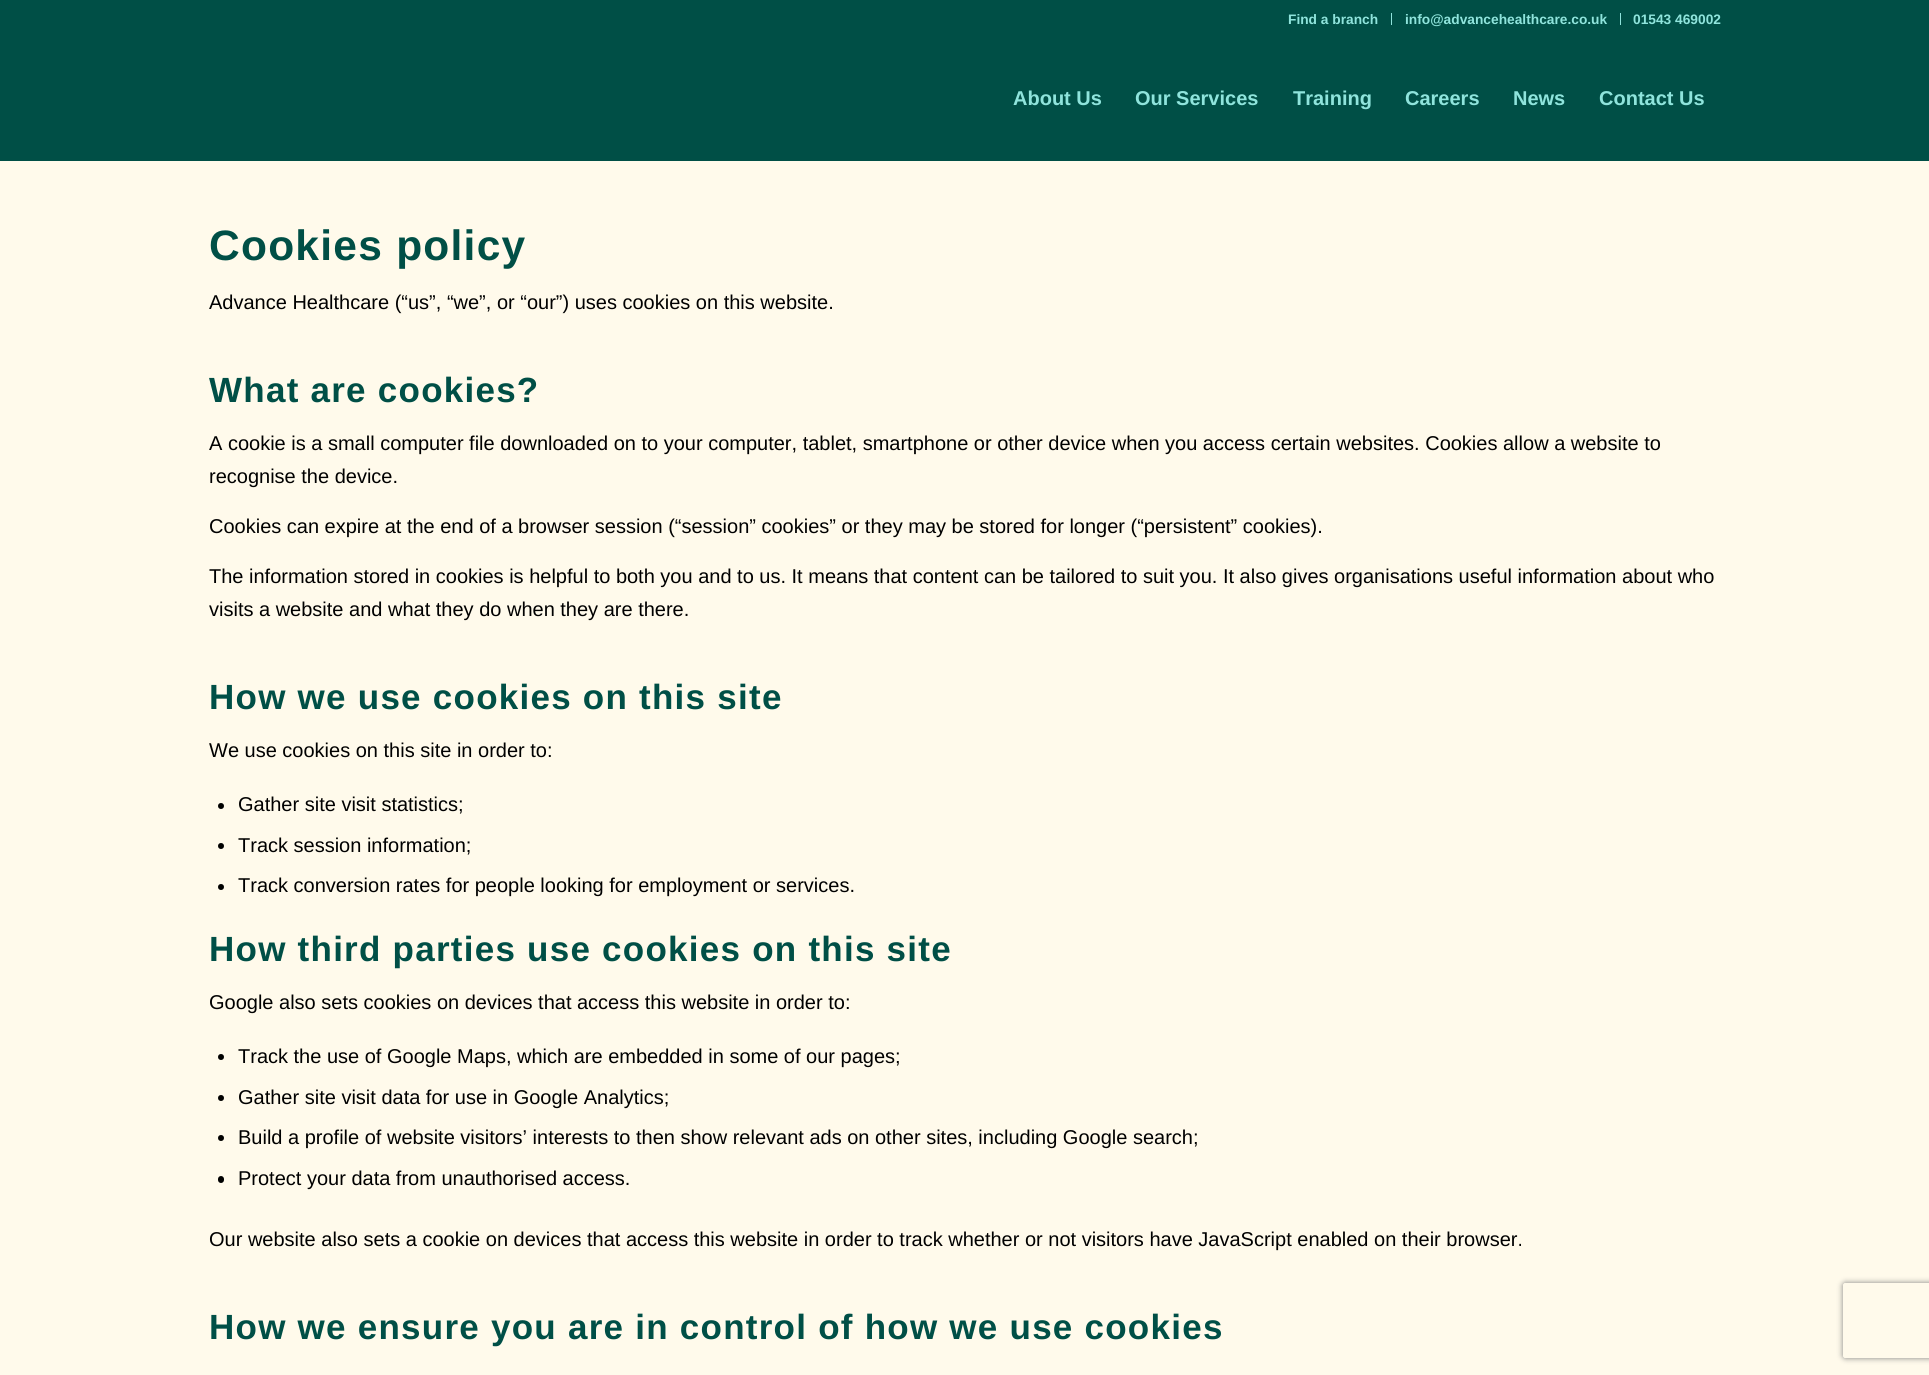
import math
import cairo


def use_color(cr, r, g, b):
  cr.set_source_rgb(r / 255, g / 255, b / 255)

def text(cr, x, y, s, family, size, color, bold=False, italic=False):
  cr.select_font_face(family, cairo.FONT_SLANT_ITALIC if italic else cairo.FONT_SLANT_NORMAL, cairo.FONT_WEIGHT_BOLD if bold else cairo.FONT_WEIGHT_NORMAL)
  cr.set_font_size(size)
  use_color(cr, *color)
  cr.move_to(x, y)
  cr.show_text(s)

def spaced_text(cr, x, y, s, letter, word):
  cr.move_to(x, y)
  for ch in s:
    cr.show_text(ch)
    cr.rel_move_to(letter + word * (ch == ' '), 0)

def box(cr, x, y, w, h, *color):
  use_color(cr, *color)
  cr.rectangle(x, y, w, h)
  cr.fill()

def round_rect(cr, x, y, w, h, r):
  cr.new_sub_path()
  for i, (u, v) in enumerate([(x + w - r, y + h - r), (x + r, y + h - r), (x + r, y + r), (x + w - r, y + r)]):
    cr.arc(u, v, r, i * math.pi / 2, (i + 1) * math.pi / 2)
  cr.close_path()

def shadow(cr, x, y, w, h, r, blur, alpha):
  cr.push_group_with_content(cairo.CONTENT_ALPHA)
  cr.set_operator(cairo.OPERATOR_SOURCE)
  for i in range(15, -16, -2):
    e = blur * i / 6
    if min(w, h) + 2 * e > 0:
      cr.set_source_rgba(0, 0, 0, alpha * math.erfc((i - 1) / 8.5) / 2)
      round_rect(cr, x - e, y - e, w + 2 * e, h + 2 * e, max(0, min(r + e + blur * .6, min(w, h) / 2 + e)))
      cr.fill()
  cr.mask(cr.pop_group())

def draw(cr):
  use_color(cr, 255, 250, 235)
  cr.paint()
  box(cr, 0, 0, 1929, 161, 0, 79, 70)
  box(cr, 1391, 13, 1, 12, 143, 228, 220)
  box(cr, 1620, 13, 1, 12, 143, 228, 220)
  use_color(cr, 0, 0, 0)
  cr.arc(221, 806, 3, 0, 2 * math.pi)
  cr.fill()
  cr.arc(221, 846, 3, 0, 2 * math.pi)
  cr.fill()
  cr.arc(221, 887, 3, 0, 2 * math.pi)
  cr.fill()
  cr.arc(221, 1057, 3, 0, 2 * math.pi)
  cr.fill()
  cr.arc(221, 1098, 3, 0, 2 * math.pi)
  cr.fill()
  cr.arc(221, 1138, 3, 0, 2 * math.pi)
  cr.fill()
  round_rect(cr, 218, 1176, 6, 7, 3)
  cr.fill()
  cr.save()
  cr.set_fill_rule(cairo.FILL_RULE_EVEN_ODD)
  cr.new_path()
  cr.move_to(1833, 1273)
  cr.line_to(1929, 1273)
  cr.line_to(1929, 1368)
  cr.line_to(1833, 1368)
  cr.close_path()
  cr.move_to(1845.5, 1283)
  cr.line_to(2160.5, 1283)
  cr.curve_to(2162, 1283, 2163, 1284, 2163, 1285.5)
  cr.line_to(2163, 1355.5)
  cr.curve_to(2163, 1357, 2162, 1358, 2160.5, 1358)
  cr.line_to(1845.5, 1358)
  cr.curve_to(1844, 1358, 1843, 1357, 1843, 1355.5)
  cr.line_to(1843, 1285.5)
  cr.curve_to(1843, 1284, 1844, 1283, 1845.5, 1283)
  cr.close_path()
  cr.clip()
  use_color(cr, 128, 128, 128)
  shadow(cr, 1843, 1283, 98, 75, 2.5, 3, 1)
  cr.restore()
  text(cr, 1288, 24, "Find a branch", "Liberation Sans", 13.75, (143, 228, 220), bold=True)
  text(cr, 1405, 24, "info@advancehealthcare.co.uk", "Liberation Sans", 13.75, (143, 228, 220), bold=True)
  text(cr, 1633, 24, "01543 469002", "Liberation Sans", 13.75, (143, 228, 220), bold=True)
  text(cr, 1013, 105, "About Us", "Liberation Sans", 20, (143, 228, 220), bold=True)
  text(cr, 1135, 105, "Our Services", "Liberation Sans", 20, (143, 228, 220), bold=True)
  text(cr, 1293, 105, "Training", "Liberation Sans", 20, (143, 228, 220), bold=True)
  text(cr, 1405, 105, "Careers", "Liberation Sans", 20, (143, 228, 220), bold=True)
  text(cr, 1513, 105, "News", "Liberation Sans", 20, (143, 228, 220), bold=True)
  text(cr, 1599, 105, "Contact Us", "Liberation Sans", 20, (143, 228, 220), bold=True)
  cr.set_font_size(42.5)
  use_color(cr, 0, 79, 70)
  spaced_text(cr, 209, 260, "Cookies policy", 1.25, 0)
  text(cr, 209, 309, "Advance Healthcare (“us”, “we”, or “our”) uses cookies on this website.", "Liberation Sans", 20, (0, 0, 0))
  cr.select_font_face("Liberation Sans", cairo.FONT_SLANT_NORMAL, cairo.FONT_WEIGHT_BOLD)
  cr.set_font_size(35)
  use_color(cr, 0, 79, 70)
  spaced_text(cr, 209, 402, "What are cookies?", 1.25, 0)
  text(cr, 209, 450, "A cookie is a small computer file downloaded on to your computer, tablet, smartphone or other device when you access certain websites. Cookies allow a website to", "Liberation Sans", 20, (0, 0, 0))
  text(cr, 209, 483, "recognise the device.", "Liberation Sans", 20, (0, 0, 0))
  text(cr, 209, 533, "Cookies can expire at the end of a browser session (“session” cookies” or they may be stored for longer (“persistent” cookies).", "Liberation Sans", 20, (0, 0, 0))
  text(cr, 209, 583, "The information stored in cookies is helpful to both you and to us. It means that content can be tailored to suit you. It also gives organisations useful information about who", "Liberation Sans", 20, (0, 0, 0))
  text(cr, 209, 616, "visits a website and what they do when they are there.", "Liberation Sans", 20, (0, 0, 0))
  cr.select_font_face("Liberation Sans", cairo.FONT_SLANT_NORMAL, cairo.FONT_WEIGHT_BOLD)
  cr.set_font_size(35)
  use_color(cr, 0, 79, 70)
  spaced_text(cr, 209, 709, "How we use cookies on this site", 1.25, 0)
  text(cr, 209, 757, "We use cookies on this site in order to:", "Liberation Sans", 20, (0, 0, 0))
  text(cr, 238, 811, "Gather site visit statistics;", "Liberation Sans", 20, (0, 0, 0))
  text(cr, 238, 852, "Track session information;", "Liberation Sans", 20, (0, 0, 0))
  text(cr, 238, 892, "Track conversion rates for people looking for employment or services.", "Liberation Sans", 20, (0, 0, 0))
  cr.select_font_face("Liberation Sans", cairo.FONT_SLANT_NORMAL, cairo.FONT_WEIGHT_BOLD)
  cr.set_font_size(35)
  use_color(cr, 0, 79, 70)
  spaced_text(cr, 209, 961, "How third parties use cookies on this site", 1.25, 0)
  text(cr, 209, 1009, "Google also sets cookies on devices that access this website in order to:", "Liberation Sans", 20, (0, 0, 0))
  text(cr, 238, 1063, "Track the use of Google Maps, which are embedded in some of our pages;", "Liberation Sans", 20, (0, 0, 0))
  text(cr, 238, 1104, "Gather site visit data for use in Google Analytics;", "Liberation Sans", 20, (0, 0, 0))
  text(cr, 238, 1144, "Build a profile of website visitors’ interests to then show relevant ads on other sites, including Google search;", "Liberation Sans", 20, (0, 0, 0))
  text(cr, 238, 1185, "Protect your data from unauthorised access.", "Liberation Sans", 20, (0, 0, 0))
  text(cr, 209, 1246, "Our website also sets a cookie on devices that access this website in order to track whether or not visitors have JavaScript enabled on their browser.", "Liberation Sans", 20, (0, 0, 0))
  cr.select_font_face("Liberation Sans", cairo.FONT_SLANT_NORMAL, cairo.FONT_WEIGHT_BOLD)
  cr.set_font_size(35)
  use_color(cr, 0, 79, 70)
  spaced_text(cr, 209, 1339, "How we ensure you are in control of how we use cookies", 1.25, 0)


surface = cairo.ImageSurface(cairo.FORMAT_RGB24, 1929, 1375)
cr = cairo.Context(surface)
options = cairo.FontOptions()
options.set_hint_metrics(cairo.HINT_METRICS_OFF)
options.set_hint_style(cairo.HINT_STYLE_NONE)
cr.set_font_options(options)
cr.set_miter_limit(4)
draw(cr)
surface.write_to_png("out.png")
